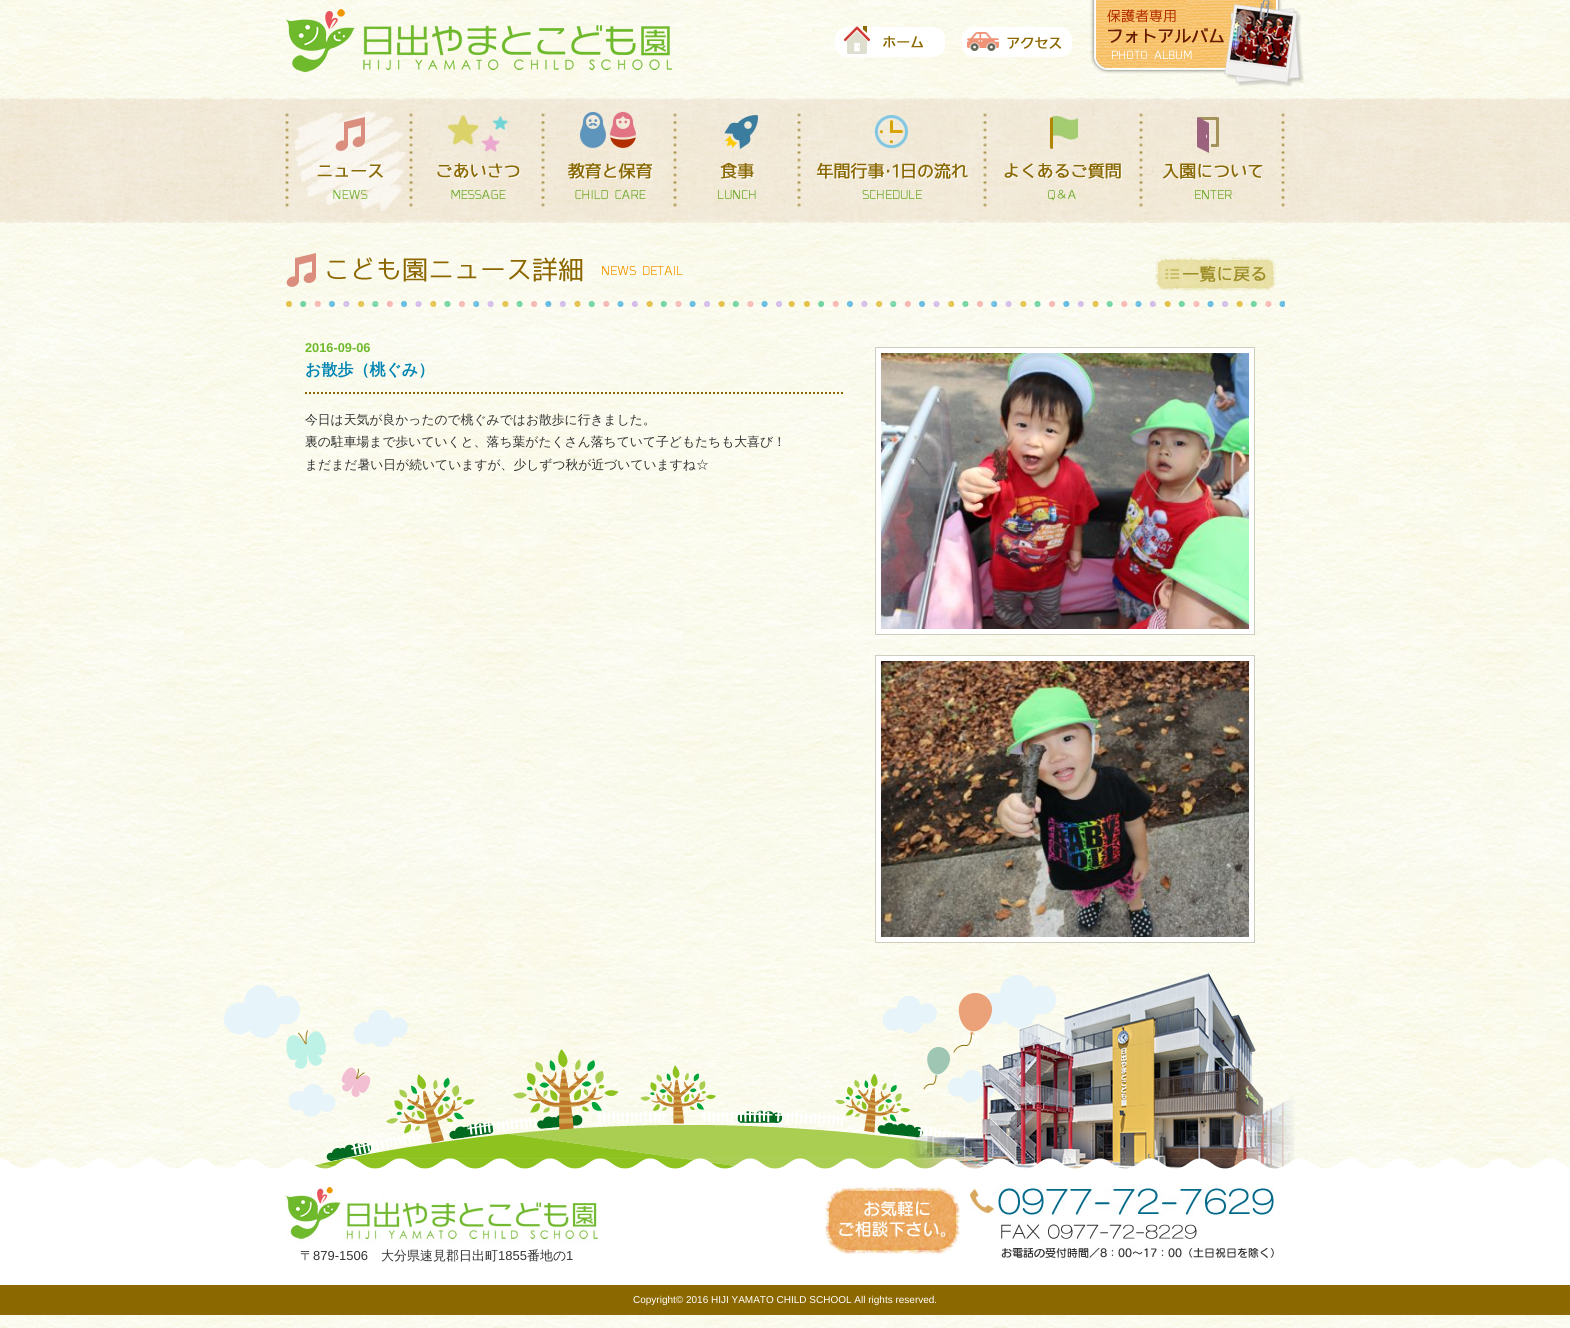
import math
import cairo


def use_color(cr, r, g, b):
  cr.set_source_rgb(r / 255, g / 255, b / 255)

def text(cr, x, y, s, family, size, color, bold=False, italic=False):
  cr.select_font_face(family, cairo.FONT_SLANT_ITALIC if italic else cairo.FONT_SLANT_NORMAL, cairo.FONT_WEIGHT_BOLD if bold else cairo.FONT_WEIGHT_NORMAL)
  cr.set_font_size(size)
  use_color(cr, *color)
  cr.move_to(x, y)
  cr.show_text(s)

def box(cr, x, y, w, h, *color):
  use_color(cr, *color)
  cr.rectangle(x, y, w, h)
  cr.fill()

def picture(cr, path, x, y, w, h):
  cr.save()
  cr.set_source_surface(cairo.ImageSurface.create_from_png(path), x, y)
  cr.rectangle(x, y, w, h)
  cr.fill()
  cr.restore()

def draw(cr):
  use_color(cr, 255, 255, 255)
  cr.paint()
  picture(cr, "img_01.png", 0, 0, 1570, 1328)
  picture(cr, "img_02.png", 224, 973, 1071, 196)
  picture(cr, "img_03.png", 285, 9, 387, 63)
  picture(cr, "img_04.png", 835, 26, 110, 31)
  picture(cr, "img_05.png", 962, 27, 110, 30)
  picture(cr, "img_06.png", 1090, 0, 214, 87)
  picture(cr, "img_07.png", 0, 98, 1570, 125)
  picture(cr, "img_08.png", 285, 98, 126, 125)
  picture(cr, "img_09.png", 411, 98, 132, 125)
  picture(cr, "img_10.png", 543, 98, 132, 125)
  picture(cr, "img_11.png", 675, 98, 124, 125)
  picture(cr, "img_12.png", 799, 98, 186, 125)
  picture(cr, "img_13.png", 985, 98, 156, 125)
  picture(cr, "img_14.png", 1141, 98, 144, 125)
  picture(cr, "img_15.png", 286, 253, 842, 54)
  picture(cr, "img_16.png", 1135, 257, 150, 50)
  cr.new_path()
  cr.move_to(305, 393)
  cr.line_to(845, 393)
  use_color(cr, 140, 105, 0)
  cr.set_dash([2, 2])
  cr.stroke()
  use_color(cr, 255, 255, 255)
  cr.rectangle(875.5, 347.5, 379, 287)
  cr.fill_preserve()
  use_color(cr, 206, 206, 191)
  cr.set_line_width(1)
  cr.set_dash([])
  cr.stroke()
  picture(cr, "img_17.png", 881, 353, 368, 276)
  use_color(cr, 255, 255, 255)
  cr.rectangle(875.5, 655.5, 379, 287)
  cr.fill_preserve()
  use_color(cr, 206, 206, 191)
  cr.stroke()
  picture(cr, "img_18.png", 881, 661, 368, 276)
  picture(cr, "img_19.png", 0, 1158, 1570, 127)
  picture(cr, "img_20.png", 285, 1187, 313, 56)
  picture(cr, "img_21.png", 825, 1187, 135, 67)
  picture(cr, "img_22.png", 970, 1187, 304, 30)
  picture(cr, "img_23.png", 1000, 1221, 201, 20)
  picture(cr, "img_24.png", 1000, 1245, 274, 15)
  box(cr, 0, 1285, 1570, 30, 140, 105, 0)
  text(cr, 305, 352, "2016-09-06", "Liberation Sans", 12.8, (111, 185, 44), bold=True)
  text(cr, 305, 375, "お散歩（桃ぐみ）", "WenQuanYi Zen Hei", 16, (0, 133, 178), bold=True)
  text(cr, 305, 424, "今日は天気が良かったので桃ぐみではお散歩に行きました。", "WenQuanYi Zen Hei Medium", 12.8, (51, 51, 51))
  text(cr, 305, 446, "裏の駐車場まで歩いていくと、落ち葉がたくさん落ちていて子どもたちも大喜び！", "WenQuanYi Zen Hei Medium", 12.8, (51, 51, 51))
  text(cr, 305, 469, "まだまだ暑い日が続いていますが、少しずつ秋が近づいていますね☆", "WenQuanYi Zen Hei Medium", 12.8, (51, 51, 51))
  text(cr, 300, 1260, "〒", "WenQuanYi Zen Hei Medium", 13, (51, 51, 51))
  text(cr, 313, 1260, "879-1506", "Liberation Sans", 13, (51, 51, 51))
  text(cr, 381, 1260, "大分県速見郡日出町", "WenQuanYi Zen Hei Medium", 13, (51, 51, 51))
  text(cr, 498, 1260, "1855", "Liberation Sans", 13, (51, 51, 51))
  text(cr, 527, 1260, "番地の", "WenQuanYi Zen Hei Medium", 13, (51, 51, 51))
  text(cr, 566, 1260, "1", "Liberation Sans", 13, (51, 51, 51))
  text(cr, 633, 1303, "Copyright© 2016 HIJI YAMATO CHILD SCHOOL All rights reserved.", "Liberation Sans", 10, (255, 255, 255))


surface = cairo.ImageSurface(cairo.FORMAT_RGB24, 1570, 1328)
cr = cairo.Context(surface)
options = cairo.FontOptions()
options.set_hint_metrics(cairo.HINT_METRICS_OFF)
options.set_hint_style(cairo.HINT_STYLE_NONE)
cr.set_font_options(options)
cr.set_miter_limit(4)
draw(cr)
surface.write_to_png("out.png")
